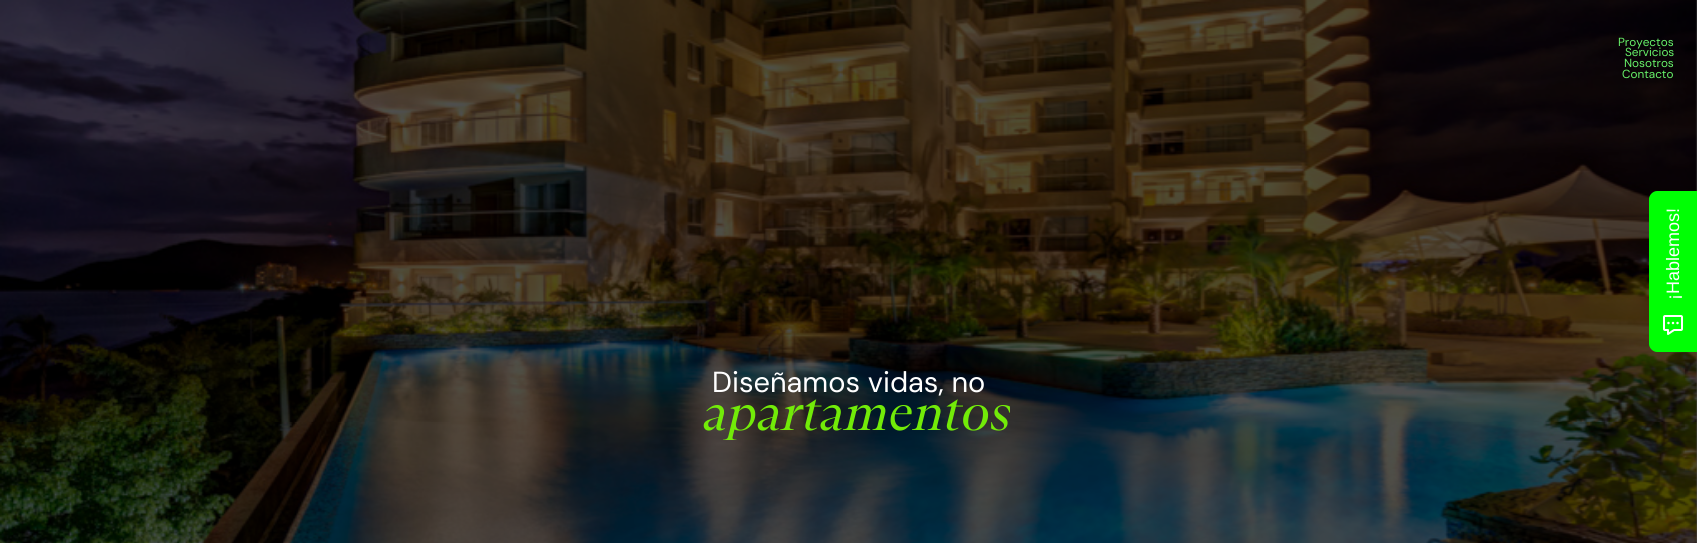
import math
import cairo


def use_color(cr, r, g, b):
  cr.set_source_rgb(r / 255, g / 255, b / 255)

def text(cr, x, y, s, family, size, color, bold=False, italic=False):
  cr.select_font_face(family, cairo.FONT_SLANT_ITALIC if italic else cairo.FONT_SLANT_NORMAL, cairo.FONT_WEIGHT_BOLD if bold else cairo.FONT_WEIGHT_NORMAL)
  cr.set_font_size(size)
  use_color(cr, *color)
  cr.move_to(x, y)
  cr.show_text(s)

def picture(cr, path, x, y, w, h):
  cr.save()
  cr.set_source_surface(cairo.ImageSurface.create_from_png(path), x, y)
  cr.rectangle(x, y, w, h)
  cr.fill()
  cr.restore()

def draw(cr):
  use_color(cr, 79, 79, 79)
  cr.paint()
  picture(cr, "img_01.png", 0, 0, 1697, 543)
  use_color(cr, 0, 255, 4)
  cr.new_path()
  cr.move_to(1649, 344)
  cr.line_to(1649, 199)
  cr.curve_to(1649, 195, 1653, 191, 1657, 191)
  cr.line_to(1697, 191)
  cr.line_to(1697, 352)
  cr.line_to(1657, 352)
  cr.curve_to(1653, 352, 1649, 348, 1649, 344)
  cr.close_path()
  cr.fill()
  picture(cr, "img_02.png", 1663, 315, 20, 20)
  text(cr, 1618, 46, "Proyectos", "DM Sans", 11.75, (104, 244, 106))
  text(cr, 1625, 56, "Servicios", "DM Sans", 11.75, (104, 244, 106))
  text(cr, 1624, 67, "Nosotros", "DM Sans", 11.75, (104, 244, 106))
  text(cr, 1622, 78, "Contacto", "DM Sans", 11.75, (104, 244, 106))
  text(cr, 712, 392, "Diseñamos vidas, no", "DM Sans", 29, (255, 255, 255))
  cr.save()
  cr.rectangle(651, 375, 360, 65)
  cr.clip()
  text(cr, 703, 430, "apartamentos", "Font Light", 52, (114, 235, 8), italic=True)
  cr.restore()
  cr.save()
  cr.translate(1679, 300)
  cr.rotate(-90 * math.pi / 180)
  text(cr, 0, 0, "¡Hablemos!", "Liberation Sans", 18, (255, 255, 255))
  cr.restore()


surface = cairo.ImageSurface(cairo.FORMAT_RGB24, 1697, 543)
cr = cairo.Context(surface)
options = cairo.FontOptions()
options.set_hint_metrics(cairo.HINT_METRICS_OFF)
options.set_hint_style(cairo.HINT_STYLE_NONE)
cr.set_font_options(options)
cr.set_miter_limit(4)
draw(cr)
surface.write_to_png("out.png")
